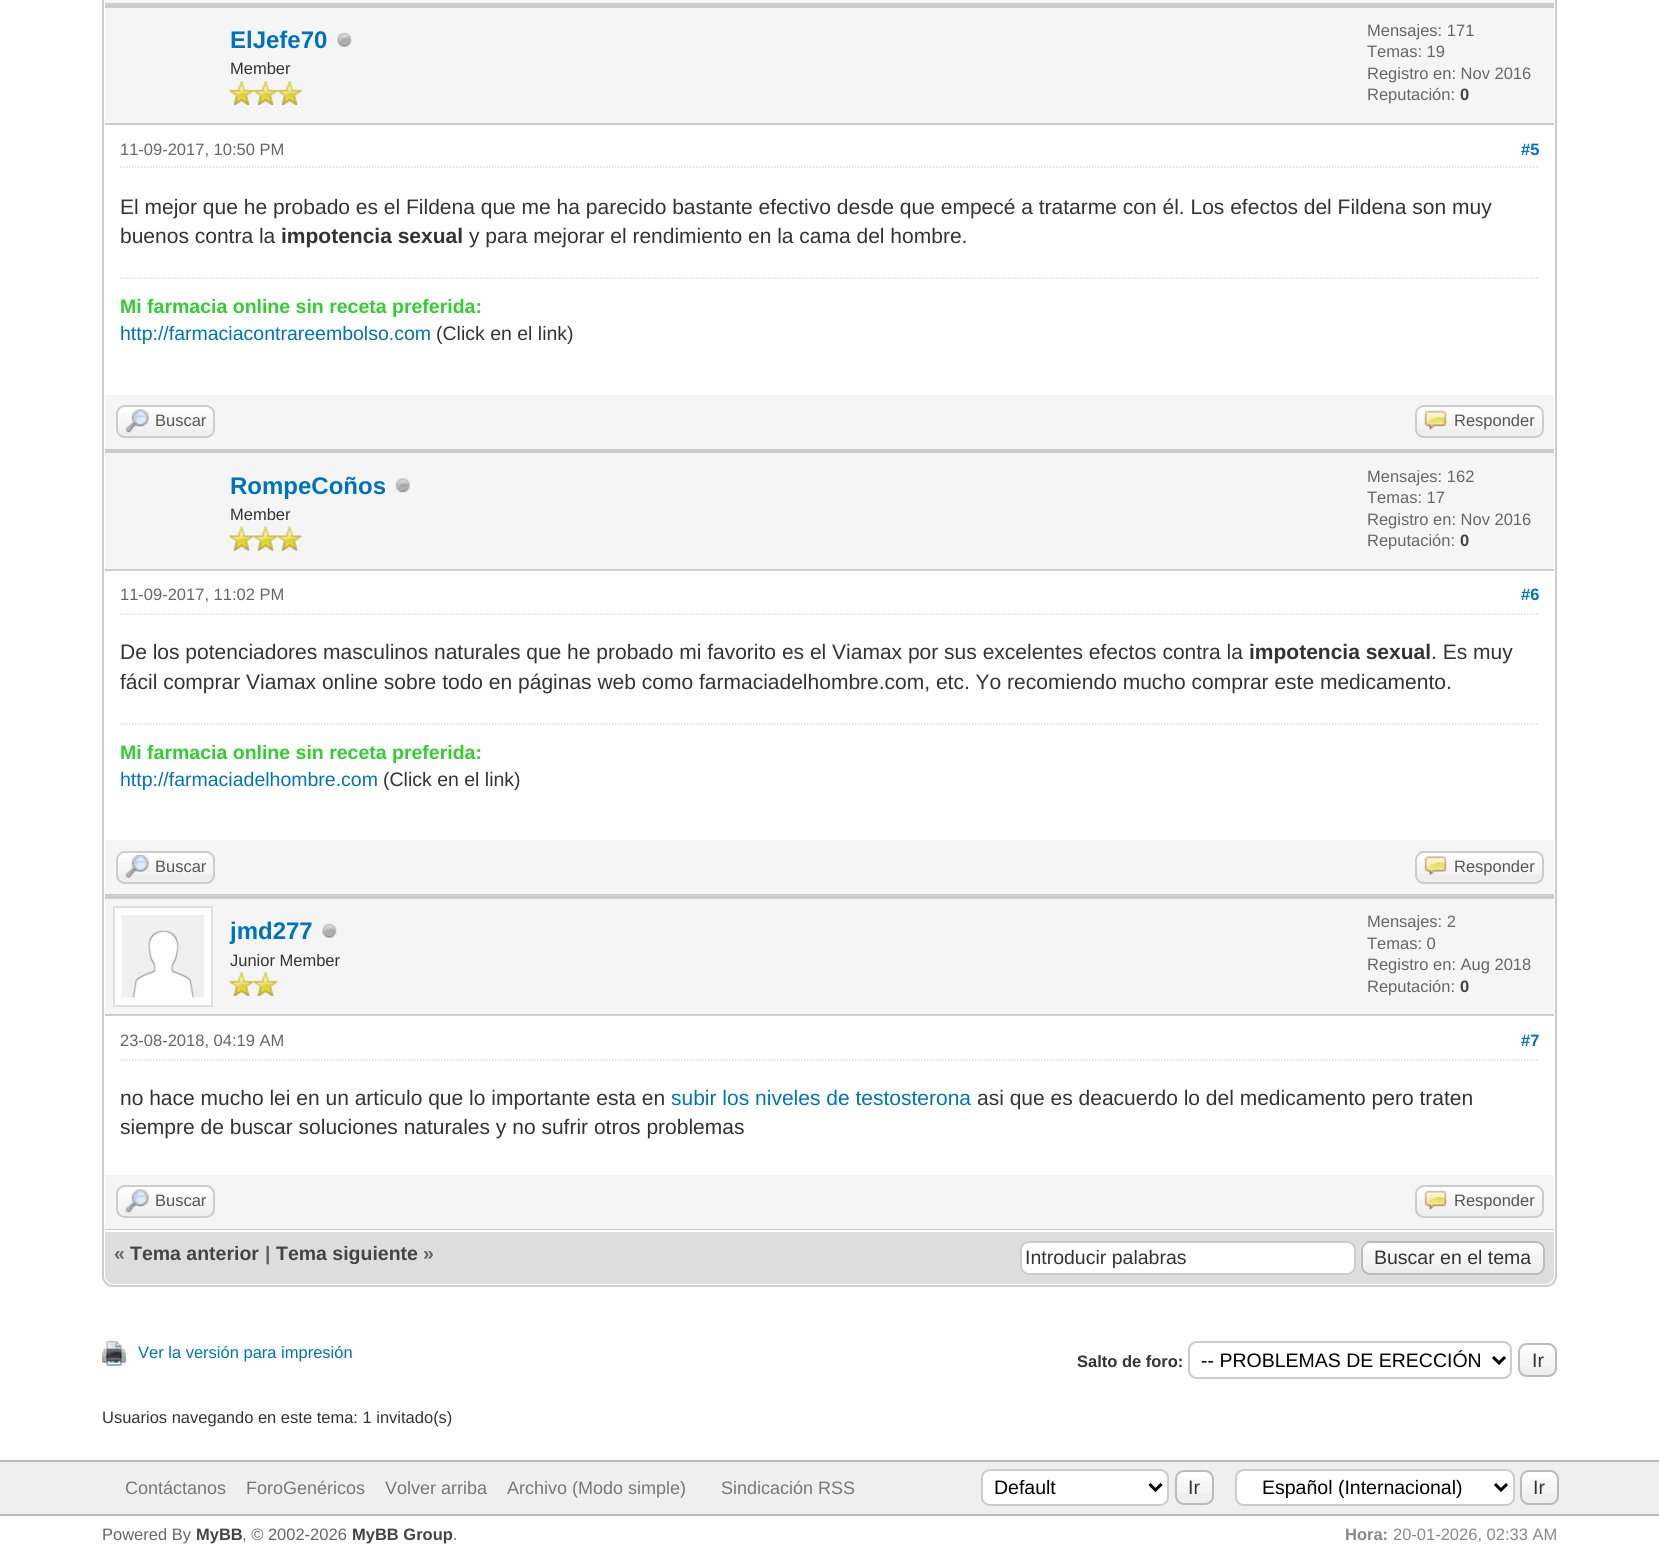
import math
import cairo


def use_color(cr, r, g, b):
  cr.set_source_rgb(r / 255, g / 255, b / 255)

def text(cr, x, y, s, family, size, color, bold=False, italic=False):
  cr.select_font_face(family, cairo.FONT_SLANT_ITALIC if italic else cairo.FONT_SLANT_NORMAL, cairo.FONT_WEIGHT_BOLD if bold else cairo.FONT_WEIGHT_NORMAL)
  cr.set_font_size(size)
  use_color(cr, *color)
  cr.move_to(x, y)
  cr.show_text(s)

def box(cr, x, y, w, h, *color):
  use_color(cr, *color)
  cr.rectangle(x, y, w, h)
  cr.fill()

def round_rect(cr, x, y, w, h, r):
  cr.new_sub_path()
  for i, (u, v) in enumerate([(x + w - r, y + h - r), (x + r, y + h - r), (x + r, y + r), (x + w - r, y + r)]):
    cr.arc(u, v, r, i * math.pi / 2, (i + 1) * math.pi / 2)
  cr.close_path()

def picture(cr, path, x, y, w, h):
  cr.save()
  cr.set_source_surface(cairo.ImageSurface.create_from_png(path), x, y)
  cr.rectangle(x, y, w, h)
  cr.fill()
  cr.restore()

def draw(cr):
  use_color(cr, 255, 255, 255)
  cr.paint()
  round_rect(cr, 103, -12, 1453, 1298, 10)
  use_color(cr, 204, 204, 204)
  cr.stroke()
  box(cr, 105, 0, 1449, 3, 245, 245, 245)
  box(cr, 105, 3, 1449, 5, 204, 204, 204)
  box(cr, 105, 8, 1449, 115, 245, 245, 245)
  box(cr, 105, 123, 1449, 2, 204, 204, 204)
  picture(cr, "img_01.png", 337, 32, 15, 15)
  picture(cr, "img_02.png", 229, 81, 25, 24)
  picture(cr, "img_03.png", 253, 81, 25, 24)
  picture(cr, "img_03.png", 277, 81, 25, 24)
  cr.new_path()
  cr.move_to(120, 167)
  cr.line_to(1539, 167)
  use_color(cr, 221, 221, 221)
  cr.set_line_width(1.5)
  cr.set_dash([1.5, 1.5])
  cr.stroke()
  cr.new_path()
  cr.move_to(120, 278)
  cr.line_to(1539, 278)
  cr.stroke()
  box(cr, 105, 395, 1449, 54, 245, 245, 245)
  box(cr, 105, 449, 1449, 4, 204, 204, 204)
  picture(cr, "img_04.png", 116, 406, 98, 30)
  round_rect(cr, 117, 406, 97, 31, 8)
  cr.set_line_width(2)
  cr.set_dash([])
  cr.stroke()
  picture(cr, "img_05.png", 125, 409, 24, 24)
  picture(cr, "img_06.png", 1415, 406, 128, 30)
  round_rect(cr, 1416, 406, 127, 31, 8)
  cr.stroke()
  picture(cr, "img_07.png", 1424, 410, 23, 20)
  box(cr, 105, 453, 1449, 116, 245, 245, 245)
  box(cr, 105, 569, 1449, 2, 204, 204, 204)
  picture(cr, "img_08.png", 395, 478, 15, 15)
  picture(cr, "img_09.png", 229, 526, 25, 25)
  picture(cr, "img_10.png", 253, 526, 25, 25)
  picture(cr, "img_10.png", 277, 526, 25, 25)
  cr.new_path()
  cr.move_to(120, 614)
  cr.line_to(1539, 614)
  use_color(cr, 221, 221, 221)
  cr.set_line_width(1.5)
  cr.set_dash([1.5, 1.5])
  cr.stroke()
  cr.new_path()
  cr.move_to(120, 724)
  cr.line_to(1539, 724)
  cr.stroke()
  box(cr, 105, 840, 1449, 54, 245, 245, 245)
  box(cr, 105, 894, 1449, 5, 204, 204, 204)
  use_color(cr, 238, 238, 238)
  round_rect(cr, 116, 851, 99, 33, 9)
  cr.fill()
  picture(cr, "img_11.png", 116, 852, 98, 22)
  round_rect(cr, 117, 852, 97, 31, 8)
  use_color(cr, 204, 204, 204)
  cr.set_line_width(2)
  cr.set_dash([])
  cr.stroke()
  picture(cr, "img_12.png", 125, 855, 24, 23)
  use_color(cr, 238, 238, 238)
  round_rect(cr, 1415, 851, 129, 33, 9)
  cr.fill()
  picture(cr, "img_13.png", 1415, 852, 128, 22)
  round_rect(cr, 1416, 852, 127, 31, 8)
  use_color(cr, 204, 204, 204)
  cr.stroke()
  picture(cr, "img_14.png", 1424, 856, 23, 19)
  box(cr, 105, 899, 1449, 115, 245, 245, 245)
  box(cr, 105, 1014, 1449, 2, 204, 204, 204)
  use_color(cr, 255, 255, 255)
  cr.rectangle(114, 907, 98, 99)
  cr.fill_preserve()
  use_color(cr, 221, 221, 221)
  cr.stroke()
  picture(cr, "img_15.png", 121, 915, 83, 83)
  picture(cr, "img_01.png", 322, 923, 15, 15)
  picture(cr, "img_02.png", 229, 972, 25, 24)
  picture(cr, "img_03.png", 253, 972, 25, 24)
  cr.new_path()
  cr.move_to(120, 1060)
  cr.line_to(1539, 1060)
  cr.set_line_width(1.5)
  cr.set_dash([1.5, 1.5])
  cr.stroke()
  box(cr, 105, 1175, 1449, 54, 245, 245, 245)
  box(cr, 105, 1229, 1449, 1, 204, 204, 204)
  picture(cr, "img_04.png", 116, 1186, 98, 30)
  round_rect(cr, 117, 1186, 97, 31, 8)
  cr.set_line_width(2)
  cr.set_dash([])
  cr.stroke()
  picture(cr, "img_05.png", 125, 1189, 24, 24)
  picture(cr, "img_06.png", 1415, 1186, 128, 30)
  round_rect(cr, 1416, 1186, 127, 31, 8)
  cr.stroke()
  picture(cr, "img_07.png", 1424, 1190, 23, 20)
  use_color(cr, 221, 221, 221)
  cr.new_path()
  cr.move_to(105, 1230)
  cr.line_to(1554, 1230)
  cr.line_to(1554, 1275)
  cr.curve_to(1554, 1280, 1550, 1284, 1545, 1284)
  cr.line_to(114, 1284)
  cr.curve_to(109, 1284, 105, 1280, 105, 1275)
  cr.close_path()
  cr.fill()
  box(cr, 105, 1230, 1449, 2, 255, 255, 255)
  round_rect(cr, 1021, 1242, 334, 32, 8)
  cr.fill_preserve()
  use_color(cr, 204, 204, 204)
  cr.stroke()
  picture(cr, "img_16.png", 1360, 1242, 185, 31)
  round_rect(cr, 1362, 1242, 182, 32, 8)
  use_color(cr, 187, 187, 187)
  cr.stroke()
  picture(cr, "img_17.png", 102, 1341, 24, 26)
  round_rect(cr, 1189, 1342, 322, 36, 8)
  use_color(cr, 204, 204, 204)
  cr.stroke()
  cr.new_path()
  cr.move_to(1493, 1357)
  cr.line_to(1499, 1363)
  cr.line_to(1505, 1357)
  use_color(cr, 0, 0, 0)
  cr.set_line_width(3)
  cr.stroke()
  picture(cr, "img_18.png", 1518, 1344, 39, 33)
  round_rect(cr, 1519, 1344, 37, 32, 8)
  use_color(cr, 187, 187, 187)
  cr.set_line_width(2)
  cr.stroke()
  box(cr, 0, 1462, 1659, 52, 239, 239, 239)
  box(cr, 0, 1460, 1659, 2, 187, 187, 187)
  box(cr, 0, 1514, 1659, 2, 187, 187, 187)
  use_color(cr, 255, 255, 255)
  round_rect(cr, 982, 1470, 186, 35, 8)
  cr.fill_preserve()
  use_color(cr, 204, 204, 204)
  cr.stroke()
  cr.new_path()
  cr.move_to(1149.5, 1484)
  cr.line_to(1155.5, 1490)
  cr.line_to(1161.5, 1484)
  use_color(cr, 0, 0, 0)
  cr.set_line_width(3)
  cr.stroke()
  picture(cr, "img_19.png", 1175, 1471, 38, 22)
  round_rect(cr, 1176, 1471, 37, 33, 8)
  use_color(cr, 187, 187, 187)
  cr.set_line_width(2)
  cr.stroke()
  use_color(cr, 255, 255, 255)
  round_rect(cr, 1236, 1470, 278, 35, 8)
  cr.fill_preserve()
  use_color(cr, 204, 204, 204)
  cr.stroke()
  cr.new_path()
  cr.move_to(1495, 1484)
  cr.line_to(1501, 1490)
  cr.line_to(1507, 1484)
  use_color(cr, 0, 0, 0)
  cr.set_line_width(3)
  cr.stroke()
  picture(cr, "img_20.png", 1520, 1471, 38, 22)
  round_rect(cr, 1521, 1471, 37, 33, 8)
  use_color(cr, 187, 187, 187)
  cr.set_line_width(2)
  cr.stroke()
  text(cr, 230, 48, "ElJefe70", "Liberation Sans", 24, (0, 114, 188), bold=True)
  text(cr, 230, 74, "Member", "Liberation Sans", 16.5, (51, 51, 51))
  text(cr, 1367, 36, "Mensajes: 171", "Liberation Sans", 16.5, (102, 102, 102))
  text(cr, 1367, 57, "Temas: 19", "Liberation Sans", 16.5, (102, 102, 102))
  text(cr, 1367, 79, "Registro en: Nov 2016", "Liberation Sans", 16.5, (102, 102, 102))
  text(cr, 1367, 100, "Reputación:", "Liberation Sans", 16.5, (102, 102, 102))
  text(cr, 1460, 100, "0", "Liberation Sans", 16.5, (68, 68, 68), bold=True)
  text(cr, 120, 155, "11-09-2017, 10:50 PM", "Liberation Sans", 16.5, (102, 102, 102))
  text(cr, 1521, 155, "#5", "Liberation Sans", 16.5, (0, 114, 188), bold=True)
  text(cr, 120, 214, "El mejor que he probado es el Fildena que me ha parecido bastante efectivo desde que empecé a tratarme con él. Los efectos del Fildena son muy", "Liberation Sans", 21, (51, 51, 51))
  text(cr, 120, 243, "buenos contra la", "Liberation Sans", 21, (51, 51, 51))
  text(cr, 281, 243, "impotencia sexual", "Liberation Sans", 21, (51, 51, 51), bold=True)
  text(cr, 469, 243, "y para mejorar el rendimiento en la cama del hombre.", "Liberation Sans", 21, (51, 51, 51))
  text(cr, 120, 313, "Mi farmacia online sin receta preferida:", "Liberation Sans", 19.5, (51, 204, 51), bold=True)
  text(cr, 120, 340, "http://farmaciacontrareembolso.com", "Liberation Sans", 19.5, (0, 114, 188))
  text(cr, 436, 340, "(Click en el link)", "Liberation Sans", 19.5, (51, 51, 51))
  text(cr, 155, 426, "Buscar", "Liberation Sans", 16.5, (85, 85, 85))
  text(cr, 1454, 426, "Responder", "Liberation Sans", 16.5, (85, 85, 85))
  text(cr, 230, 494, "RompeCoños", "Liberation Sans", 24, (0, 114, 188), bold=True)
  text(cr, 230, 520, "Member", "Liberation Sans", 16.5, (51, 51, 51))
  text(cr, 1367, 482, "Mensajes: 162", "Liberation Sans", 16.5, (102, 102, 102))
  text(cr, 1367, 503, "Temas: 17", "Liberation Sans", 16.5, (102, 102, 102))
  text(cr, 1367, 525, "Registro en: Nov 2016", "Liberation Sans", 16.5, (102, 102, 102))
  text(cr, 1367, 546, "Reputación:", "Liberation Sans", 16.5, (102, 102, 102))
  text(cr, 1460, 546, "0", "Liberation Sans", 16.5, (68, 68, 68), bold=True)
  text(cr, 120, 600, "11-09-2017, 11:02 PM", "Liberation Sans", 16.5, (102, 102, 102))
  text(cr, 1521, 600, "#6", "Liberation Sans", 16.5, (0, 114, 188), bold=True)
  text(cr, 120, 659, "De los potenciadores masculinos naturales que he probado mi favorito es el Viamax por sus excelentes efectos contra la", "Liberation Sans", 21, (51, 51, 51))
  text(cr, 1249, 659, "impotencia sexual", "Liberation Sans", 21, (51, 51, 51), bold=True)
  text(cr, 1431, 659, ". Es muy", "Liberation Sans", 21, (51, 51, 51))
  text(cr, 120, 689, "fácil comprar Viamax online sobre todo en páginas web como farmaciadelhombre.com, etc. Yo recomiendo mucho comprar este medicamento.", "Liberation Sans", 21, (51, 51, 51))
  text(cr, 120, 759, "Mi farmacia online sin receta preferida:", "Liberation Sans", 19.5, (51, 204, 51), bold=True)
  text(cr, 120, 786, "http://farmaciadelhombre.com", "Liberation Sans", 19.5, (0, 114, 188))
  text(cr, 383, 786, "(Click en el link)", "Liberation Sans", 19.5, (51, 51, 51))
  text(cr, 155, 872, "Buscar", "Liberation Sans", 16.5, (85, 85, 85))
  text(cr, 1454, 872, "Responder", "Liberation Sans", 16.5, (85, 85, 85))
  text(cr, 230, 939, "jmd277", "Liberation Sans", 24, (0, 114, 188), bold=True)
  text(cr, 230, 966, "Junior Member", "Liberation Sans", 16.5, (51, 51, 51))
  text(cr, 1367, 927, "Mensajes: 2", "Liberation Sans", 16.5, (102, 102, 102))
  text(cr, 1367, 949, "Temas: 0", "Liberation Sans", 16.5, (102, 102, 102))
  text(cr, 1367, 970, "Registro en: Aug 2018", "Liberation Sans", 16.5, (102, 102, 102))
  text(cr, 1367, 992, "Reputación:", "Liberation Sans", 16.5, (102, 102, 102))
  text(cr, 1460, 992, "0", "Liberation Sans", 16.5, (68, 68, 68), bold=True)
  text(cr, 120, 1046, "23-08-2018, 04:19 AM", "Liberation Sans", 16.5, (102, 102, 102))
  text(cr, 1521, 1046, "#7", "Liberation Sans", 16.5, (0, 114, 188), bold=True)
  text(cr, 120, 1105, "no hace mucho lei en un articulo que lo importante esta en", "Liberation Sans", 21, (51, 51, 51))
  text(cr, 671, 1105, "subir los niveles de testosterona", "Liberation Sans", 21, (0, 114, 188))
  text(cr, 977, 1105, "asi que es deacuerdo lo del medicamento pero traten", "Liberation Sans", 21, (51, 51, 51))
  text(cr, 120, 1134, "siempre de buscar soluciones naturales y no sufrir otros problemas", "Liberation Sans", 21, (51, 51, 51))
  text(cr, 155, 1206, "Buscar", "Liberation Sans", 16.5, (85, 85, 85))
  text(cr, 1454, 1206, "Responder", "Liberation Sans", 16.5, (85, 85, 85))
  text(cr, 114, 1260, "«", "Liberation Sans", 19.5, (102, 102, 102), bold=True)
  text(cr, 130, 1260, "Tema anterior", "Liberation Sans", 19.5, (68, 68, 68), bold=True)
  text(cr, 265, 1260, "|", "Liberation Sans", 19.5, (102, 102, 102), bold=True)
  text(cr, 276, 1260, "Tema siguiente", "Liberation Sans", 19.5, (68, 68, 68), bold=True)
  text(cr, 423, 1260, "»", "Liberation Sans", 19.5, (102, 102, 102), bold=True)
  text(cr, 1025, 1264, "Introducir palabras", "Liberation Sans", 19.5, (51, 51, 51))
  text(cr, 1374, 1264, "Buscar en el tema", "Liberation Sans", 19.5, (51, 51, 51))
  text(cr, 138, 1358, "Ver la versión para impresión", "Liberation Sans", 16.5, (0, 114, 188))
  text(cr, 1077, 1367, "Salto de foro:", "Liberation Sans", 16.5, (51, 51, 51), bold=True)
  text(cr, 1201, 1367, "-- PROBLEMAS DE ERECCIÓN", "Liberation Sans", 19.5, (0, 0, 0))
  text(cr, 1532, 1367, "Ir", "Liberation Sans", 19.5, (51, 51, 51))
  text(cr, 102, 1423, "Usuarios navegando en este tema: 1 invitado(s)", "Liberation Sans", 16.5, (51, 51, 51))
  text(cr, 125, 1494, "Contáctanos", "Liberation Sans", 18, (119, 119, 119))
  text(cr, 246, 1494, "ForoGenéricos", "Liberation Sans", 18, (119, 119, 119))
  text(cr, 385, 1494, "Volver arriba", "Liberation Sans", 18, (119, 119, 119))
  text(cr, 507, 1494, "Archivo (Modo simple)", "Liberation Sans", 18, (119, 119, 119))
  text(cr, 721, 1494, "Sindicación RSS", "Liberation Sans", 18, (119, 119, 119))
  text(cr, 994, 1494, "Default", "Liberation Sans", 19.5, (0, 0, 0))
  text(cr, 1188, 1494, "Ir", "Liberation Sans", 19.5, (51, 51, 51))
  text(cr, 1262, 1494, "Español (Internacional)", "Liberation Sans", 19.5, (0, 0, 0))
  text(cr, 1533, 1494, "Ir", "Liberation Sans", 19.5, (51, 51, 51))
  text(cr, 102, 1540, "Powered By", "Liberation Sans", 16.5, (102, 102, 102))
  text(cr, 196, 1540, "MyBB", "Liberation Sans", 16.5, (68, 68, 68), bold=True)
  text(cr, 242, 1540, ", © 2002-2026", "Liberation Sans", 16.5, (102, 102, 102))
  text(cr, 352, 1540, "MyBB Group", "Liberation Sans", 16.5, (68, 68, 68), bold=True)
  text(cr, 453, 1540, ".", "Liberation Sans", 16.5, (102, 102, 102))
  text(cr, 1345, 1540, "Hora:", "Liberation Sans", 16.5, (136, 136, 136), bold=True)
  text(cr, 1393, 1540, "20-01-2026, 02:33 AM", "Liberation Sans", 16.5, (136, 136, 136))


surface = cairo.ImageSurface(cairo.FORMAT_RGB24, 1659, 1556)
cr = cairo.Context(surface)
options = cairo.FontOptions()
options.set_hint_metrics(cairo.HINT_METRICS_OFF)
options.set_hint_style(cairo.HINT_STYLE_NONE)
cr.set_font_options(options)
cr.set_miter_limit(4)
draw(cr)
surface.write_to_png("out.png")
